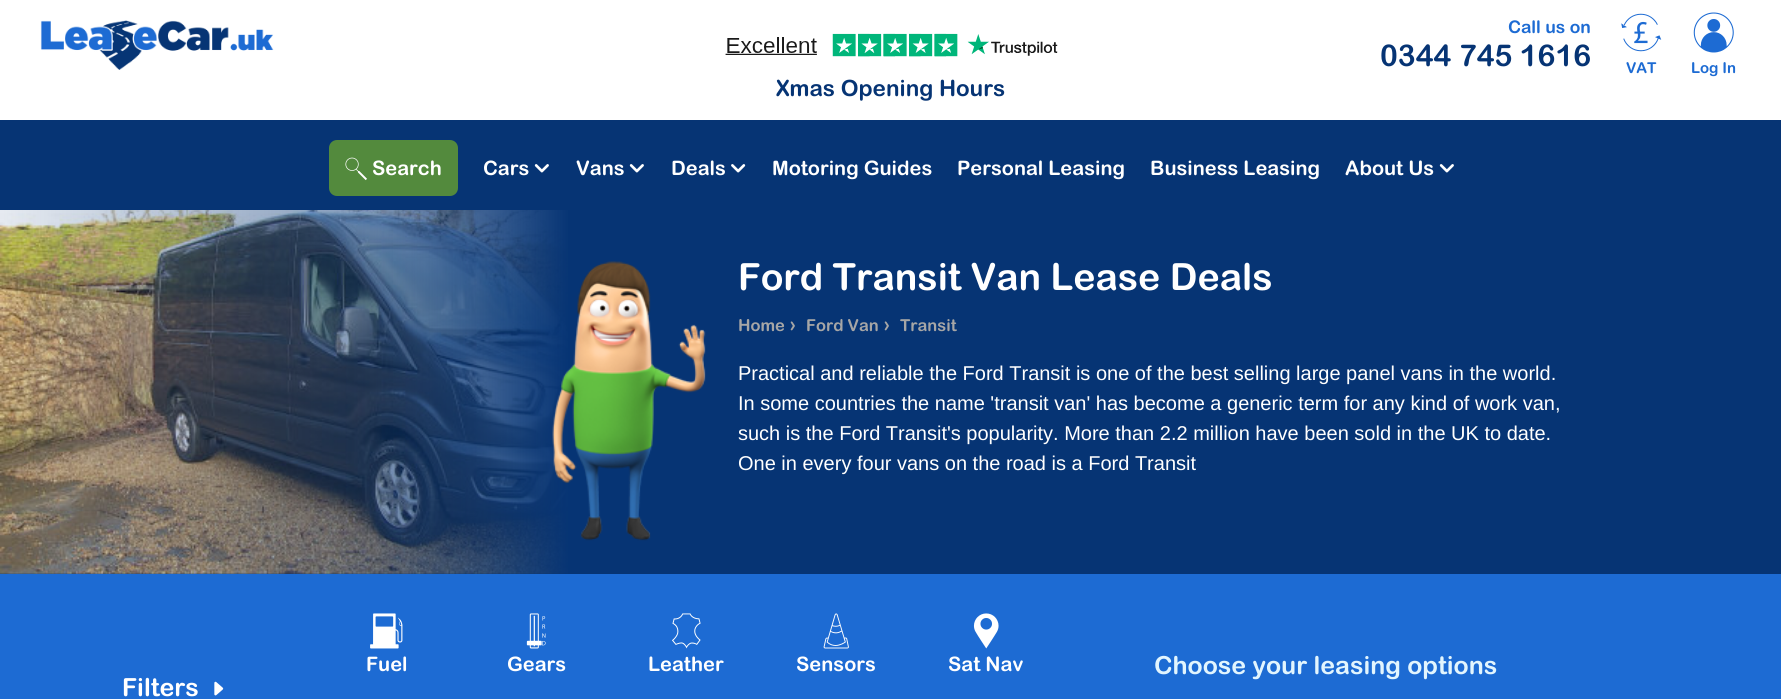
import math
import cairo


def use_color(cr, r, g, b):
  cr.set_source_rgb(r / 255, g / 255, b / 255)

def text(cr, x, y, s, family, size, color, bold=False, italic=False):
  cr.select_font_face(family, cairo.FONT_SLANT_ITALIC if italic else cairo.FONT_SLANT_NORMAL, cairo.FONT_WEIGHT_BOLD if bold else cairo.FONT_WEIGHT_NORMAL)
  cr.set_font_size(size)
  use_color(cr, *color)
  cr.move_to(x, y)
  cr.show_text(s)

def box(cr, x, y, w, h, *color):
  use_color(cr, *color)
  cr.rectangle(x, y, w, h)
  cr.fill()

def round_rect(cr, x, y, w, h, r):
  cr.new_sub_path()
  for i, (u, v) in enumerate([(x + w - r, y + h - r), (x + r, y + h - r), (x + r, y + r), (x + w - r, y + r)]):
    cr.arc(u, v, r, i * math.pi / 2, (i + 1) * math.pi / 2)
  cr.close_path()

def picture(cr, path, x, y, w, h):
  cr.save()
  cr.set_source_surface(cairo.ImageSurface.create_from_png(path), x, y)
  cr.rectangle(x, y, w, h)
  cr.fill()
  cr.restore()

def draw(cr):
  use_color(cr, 6, 52, 116)
  cr.paint()
  box(cr, 0, 0, 1781, 120, 255, 255, 255)
  picture(cr, "img_01.png", 40, 20, 234, 50)
  picture(cr, "img_02.png", 725, 33, 333, 24)
  picture(cr, "img_03.png", 1621, 13, 41, 39)
  picture(cr, "img_04.png", 1693, 12, 41, 41)
  use_color(cr, 83, 138, 61)
  round_rect(cr, 329, 140, 129, 56, 8)
  cr.fill()
  picture(cr, "img_05.png", 345, 157, 22, 24)
  picture(cr, "img_06.png", 534, 164, 15, 9)
  picture(cr, "img_06.png", 629, 164, 15, 9)
  picture(cr, "img_07.png", 731, 164, 15, 9)
  picture(cr, "img_06.png", 1439, 164, 15, 9)
  picture(cr, "img_08.png", 0, 210, 568, 364)
  gradient = cairo.LinearGradient(0, 364, 1781, 364)
  gradient.add_color_stop_rgba(0, 0.024, 0.204, 0.455, 0.1)
  gradient.add_color_stop_rgba(0.21, 0.024, 0.204, 0.455, 0.5)
  gradient.add_color_stop_rgba(0.32, 0.024, 0.204, 0.455, 1)
  cr.set_source(gradient)
  cr.rectangle(0, 210, 568, 364)
  cr.fill()
  picture(cr, "img_09.png", 552, 261, 154, 280)
  box(cr, 0, 574, 1781, 125, 29, 107, 211)
  picture(cr, "img_10.png", 370, 613, 33, 36)
  picture(cr, "img_11.png", 526, 613, 20, 36)
  picture(cr, "img_12.png", 672, 613, 29, 36)
  picture(cr, "img_13.png", 823, 613, 26, 36)
  picture(cr, "img_14.png", 973, 613, 26, 36)
  picture(cr, "img_15.png", 214, 681, 10, 15)
  text(cr, 1508, 33, "Call us on", "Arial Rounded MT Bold", 17.5, (29, 107, 211), bold=True)
  text(cr, 1380, 66, "0344 745 1616", "Arial Rounded MT Bold", 30, (6, 52, 116), bold=True)
  text(cr, 1626, 73, "VAT", "Arial Rounded MT Bold", 15, (29, 107, 211), bold=True)
  text(cr, 1691, 73, "Log In", "Arial Rounded MT Bold", 15, (29, 107, 211), bold=True)
  text(cr, 776, 96, "Xmas Opening Hours", "Arial Rounded MT Bold", 22.5, (6, 52, 116), bold=True)
  text(cr, 372, 175, "Search", "Arial Rounded MT Bold", 20, (255, 255, 255), bold=True)
  text(cr, 483, 175, "Cars", "Arial Rounded MT Bold", 20, (255, 255, 255), bold=True)
  text(cr, 576, 175, "Vans", "Arial Rounded MT Bold", 20, (255, 255, 255), bold=True)
  text(cr, 671, 175, "Deals", "Arial Rounded MT Bold", 20, (255, 255, 255), bold=True)
  text(cr, 772, 175, "Motoring Guides", "Arial Rounded MT Bold", 20, (255, 255, 255), bold=True)
  text(cr, 957, 175, "Personal Leasing", "Arial Rounded MT Bold", 20, (255, 255, 255), bold=True)
  text(cr, 1150, 175, "Business Leasing", "Arial Rounded MT Bold", 20, (255, 255, 255), bold=True)
  text(cr, 1345, 175, "About Us", "Arial Rounded MT Bold", 20, (255, 255, 255), bold=True)
  text(cr, 738, 290, "Ford Transit Van Lease Deals", "Arial Rounded MT Bold", 37.5, (255, 255, 255), bold=True)
  text(cr, 738, 331, "Home", "Arial Rounded MT Bold", 16.5, (166, 166, 166), bold=True)
  text(cr, 789, 331, "›", "Arial Rounded MT Bold", 20, (166, 166, 166), bold=True)
  text(cr, 806, 331, "Ford Van", "Arial Rounded MT Bold", 16.5, (166, 166, 166), bold=True)
  text(cr, 883, 331, "›", "Arial Rounded MT Bold", 20, (166, 166, 166), bold=True)
  text(cr, 900, 331, "Transit", "Arial Rounded MT Bold", 16.5, (166, 166, 166), bold=True)
  text(cr, 738, 380, "Practical and reliable the Ford Transit is one of the best selling large panel vans in the world.", "Liberation Sans", 20, (255, 255, 255))
  text(cr, 738, 410, "In some countries the name 'transit van' has become a generic term for any kind of work van,", "Liberation Sans", 20, (255, 255, 255))
  text(cr, 738, 440, "such is the Ford Transit's popularity. More than 2.2 million have been sold in the UK to date.", "Liberation Sans", 20, (255, 255, 255))
  text(cr, 738, 470, "One in every four vans on the road is a Ford Transit", "Liberation Sans", 20, (255, 255, 255))
  text(cr, 366, 671, "Fuel", "Arial Rounded MT Bold", 20, (255, 255, 255), bold=True)
  text(cr, 507, 671, "Gears", "Arial Rounded MT Bold", 20, (255, 255, 255), bold=True)
  text(cr, 648, 671, "Leather", "Arial Rounded MT Bold", 20, (255, 255, 255), bold=True)
  text(cr, 796, 671, "Sensors", "Arial Rounded MT Bold", 20, (255, 255, 255), bold=True)
  text(cr, 948, 671, "Sat Nav", "Arial Rounded MT Bold", 20, (255, 255, 255), bold=True)
  text(cr, 1154, 674, "Choose your leasing options", "Arial Rounded MT Bold", 25, (226, 245, 254), bold=True)
  text(cr, 122, 696, "Filters", "Arial Rounded MT Bold", 25, (255, 255, 255), bold=True)


surface = cairo.ImageSurface(cairo.FORMAT_RGB24, 1781, 699)
cr = cairo.Context(surface)
options = cairo.FontOptions()
options.set_hint_metrics(cairo.HINT_METRICS_OFF)
options.set_hint_style(cairo.HINT_STYLE_NONE)
cr.set_font_options(options)
cr.set_miter_limit(4)
draw(cr)
surface.write_to_png("out.png")
